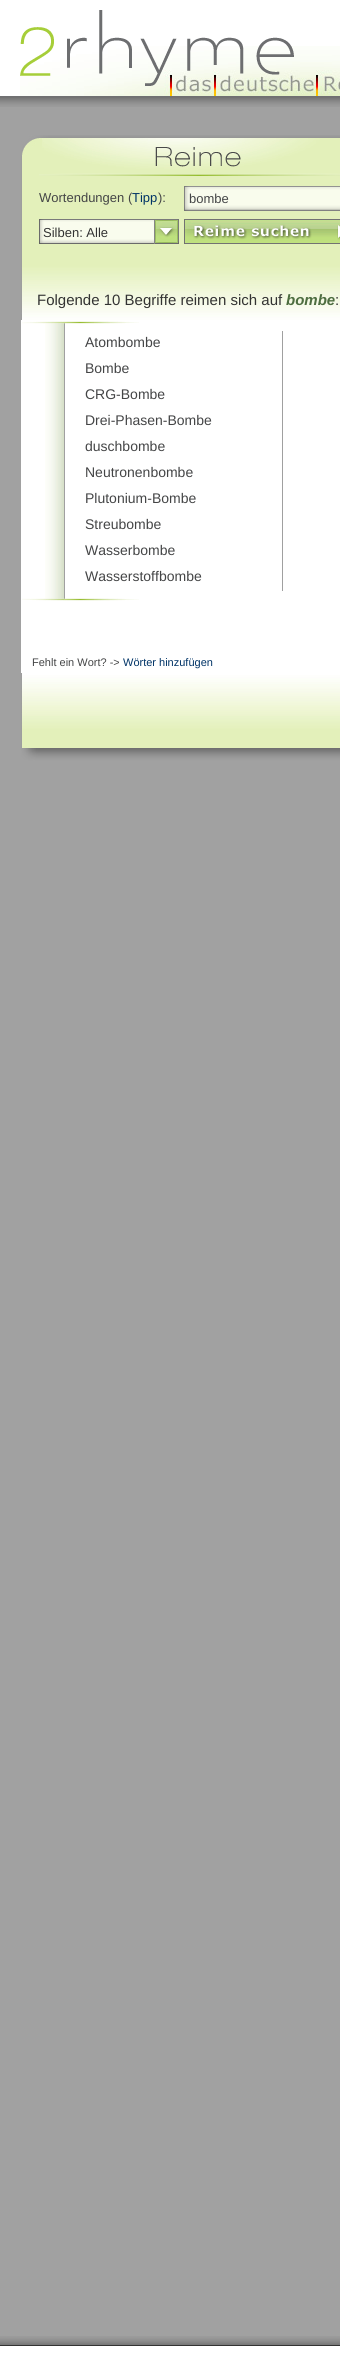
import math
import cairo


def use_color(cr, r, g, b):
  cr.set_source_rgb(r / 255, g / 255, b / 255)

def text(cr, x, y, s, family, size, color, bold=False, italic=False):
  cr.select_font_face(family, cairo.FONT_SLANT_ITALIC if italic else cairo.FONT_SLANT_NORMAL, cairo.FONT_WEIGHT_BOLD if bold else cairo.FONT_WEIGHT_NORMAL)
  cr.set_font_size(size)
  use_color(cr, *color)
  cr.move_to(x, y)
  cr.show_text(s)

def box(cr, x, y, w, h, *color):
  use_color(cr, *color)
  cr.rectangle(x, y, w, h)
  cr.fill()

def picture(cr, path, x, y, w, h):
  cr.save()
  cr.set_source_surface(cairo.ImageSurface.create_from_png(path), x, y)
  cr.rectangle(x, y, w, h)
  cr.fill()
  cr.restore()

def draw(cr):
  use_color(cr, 161, 161, 161)
  cr.paint()
  picture(cr, "img_01.png", 0, 0, 340, 107)
  picture(cr, "img_02.png", 20, 46, 320, 50)
  picture(cr, "img_03.png", 20, 10, 274, 76)
  picture(cr, "img_04.png", 21, 135, 319, 147)
  picture(cr, "img_05.png", 39, 147, 301, 29)
  picture(cr, "img_06.png", 184, 186, 156, 25)
  picture(cr, "img_07.png", 39, 219, 115, 25)
  picture(cr, "img_08.png", 154, 219, 25, 25)
  picture(cr, "img_09.png", 184, 219, 156, 25)
  box(cr, 21, 320, 319, 353, 255, 255, 255)
  picture(cr, "img_10.png", 21, 282, 319, 38)
  picture(cr, "img_11.png", 45, 324, 20, 274)
  picture(cr, "img_12.png", 22, 321, 117, 3)
  box(cr, 282, 331, 1, 260, 160, 160, 160)
  picture(cr, "img_13.png", 22, 598, 117, 3)
  picture(cr, "img_14.png", 21, 673, 319, 90)
  picture(cr, "img_15.png", 0, 2336, 340, 44)
  text(cr, 39, 202, "Wortendungen (", "Liberation Sans", 13, (68, 69, 70))
  text(cr, 132, 202, "Tipp", "Liberation Sans", 13, (0, 51, 102))
  text(cr, 158, 202, "):", "Liberation Sans", 13, (68, 69, 70))
  text(cr, 189, 203, "bombe", "Liberation Sans", 13, (68, 69, 70))
  text(cr, 43, 237, "Silben: Alle", "Liberation Sans", 13, (51, 51, 51))
  text(cr, 37, 305, "Folgende 10 Begriffe reimen sich auf", "Liberation Sans", 15, (51, 51, 51))
  text(cr, 286, 305, "bombe", "Liberation Sans", 15, (77, 109, 64), bold=True, italic=True)
  text(cr, 335, 305, ":", "Liberation Sans", 15, (51, 51, 51))
  text(cr, 85, 347, "Atombombe", "Liberation Sans", 14, (68, 69, 70))
  text(cr, 85, 373, "Bombe", "Liberation Sans", 14, (68, 69, 70))
  text(cr, 85, 399, "CRG-Bombe", "Liberation Sans", 14, (68, 69, 70))
  text(cr, 85, 425, "Drei-Phasen-Bombe", "Liberation Sans", 14, (68, 69, 70))
  text(cr, 85, 451, "duschbombe", "Liberation Sans", 14, (68, 69, 70))
  text(cr, 85, 477, "Neutronenbombe", "Liberation Sans", 14, (68, 69, 70))
  text(cr, 85, 503, "Plutonium-Bombe", "Liberation Sans", 14, (68, 69, 70))
  text(cr, 85, 529, "Streubombe", "Liberation Sans", 14, (68, 69, 70))
  text(cr, 85, 555, "Wasserbombe", "Liberation Sans", 14, (68, 69, 70))
  text(cr, 85, 581, "Wasserstoffbombe", "Liberation Sans", 14, (68, 69, 70))
  text(cr, 32, 666, "Fehlt ein Wort? ->", "Liberation Sans", 11, (68, 69, 70))
  text(cr, 123, 666, "Wörter hinzufügen", "Liberation Sans", 11, (0, 51, 102))


surface = cairo.ImageSurface(cairo.FORMAT_RGB24, 340, 2380)
cr = cairo.Context(surface)
options = cairo.FontOptions()
options.set_hint_metrics(cairo.HINT_METRICS_OFF)
options.set_hint_style(cairo.HINT_STYLE_NONE)
cr.set_font_options(options)
cr.set_miter_limit(4)
draw(cr)
surface.write_to_png("out.png")
